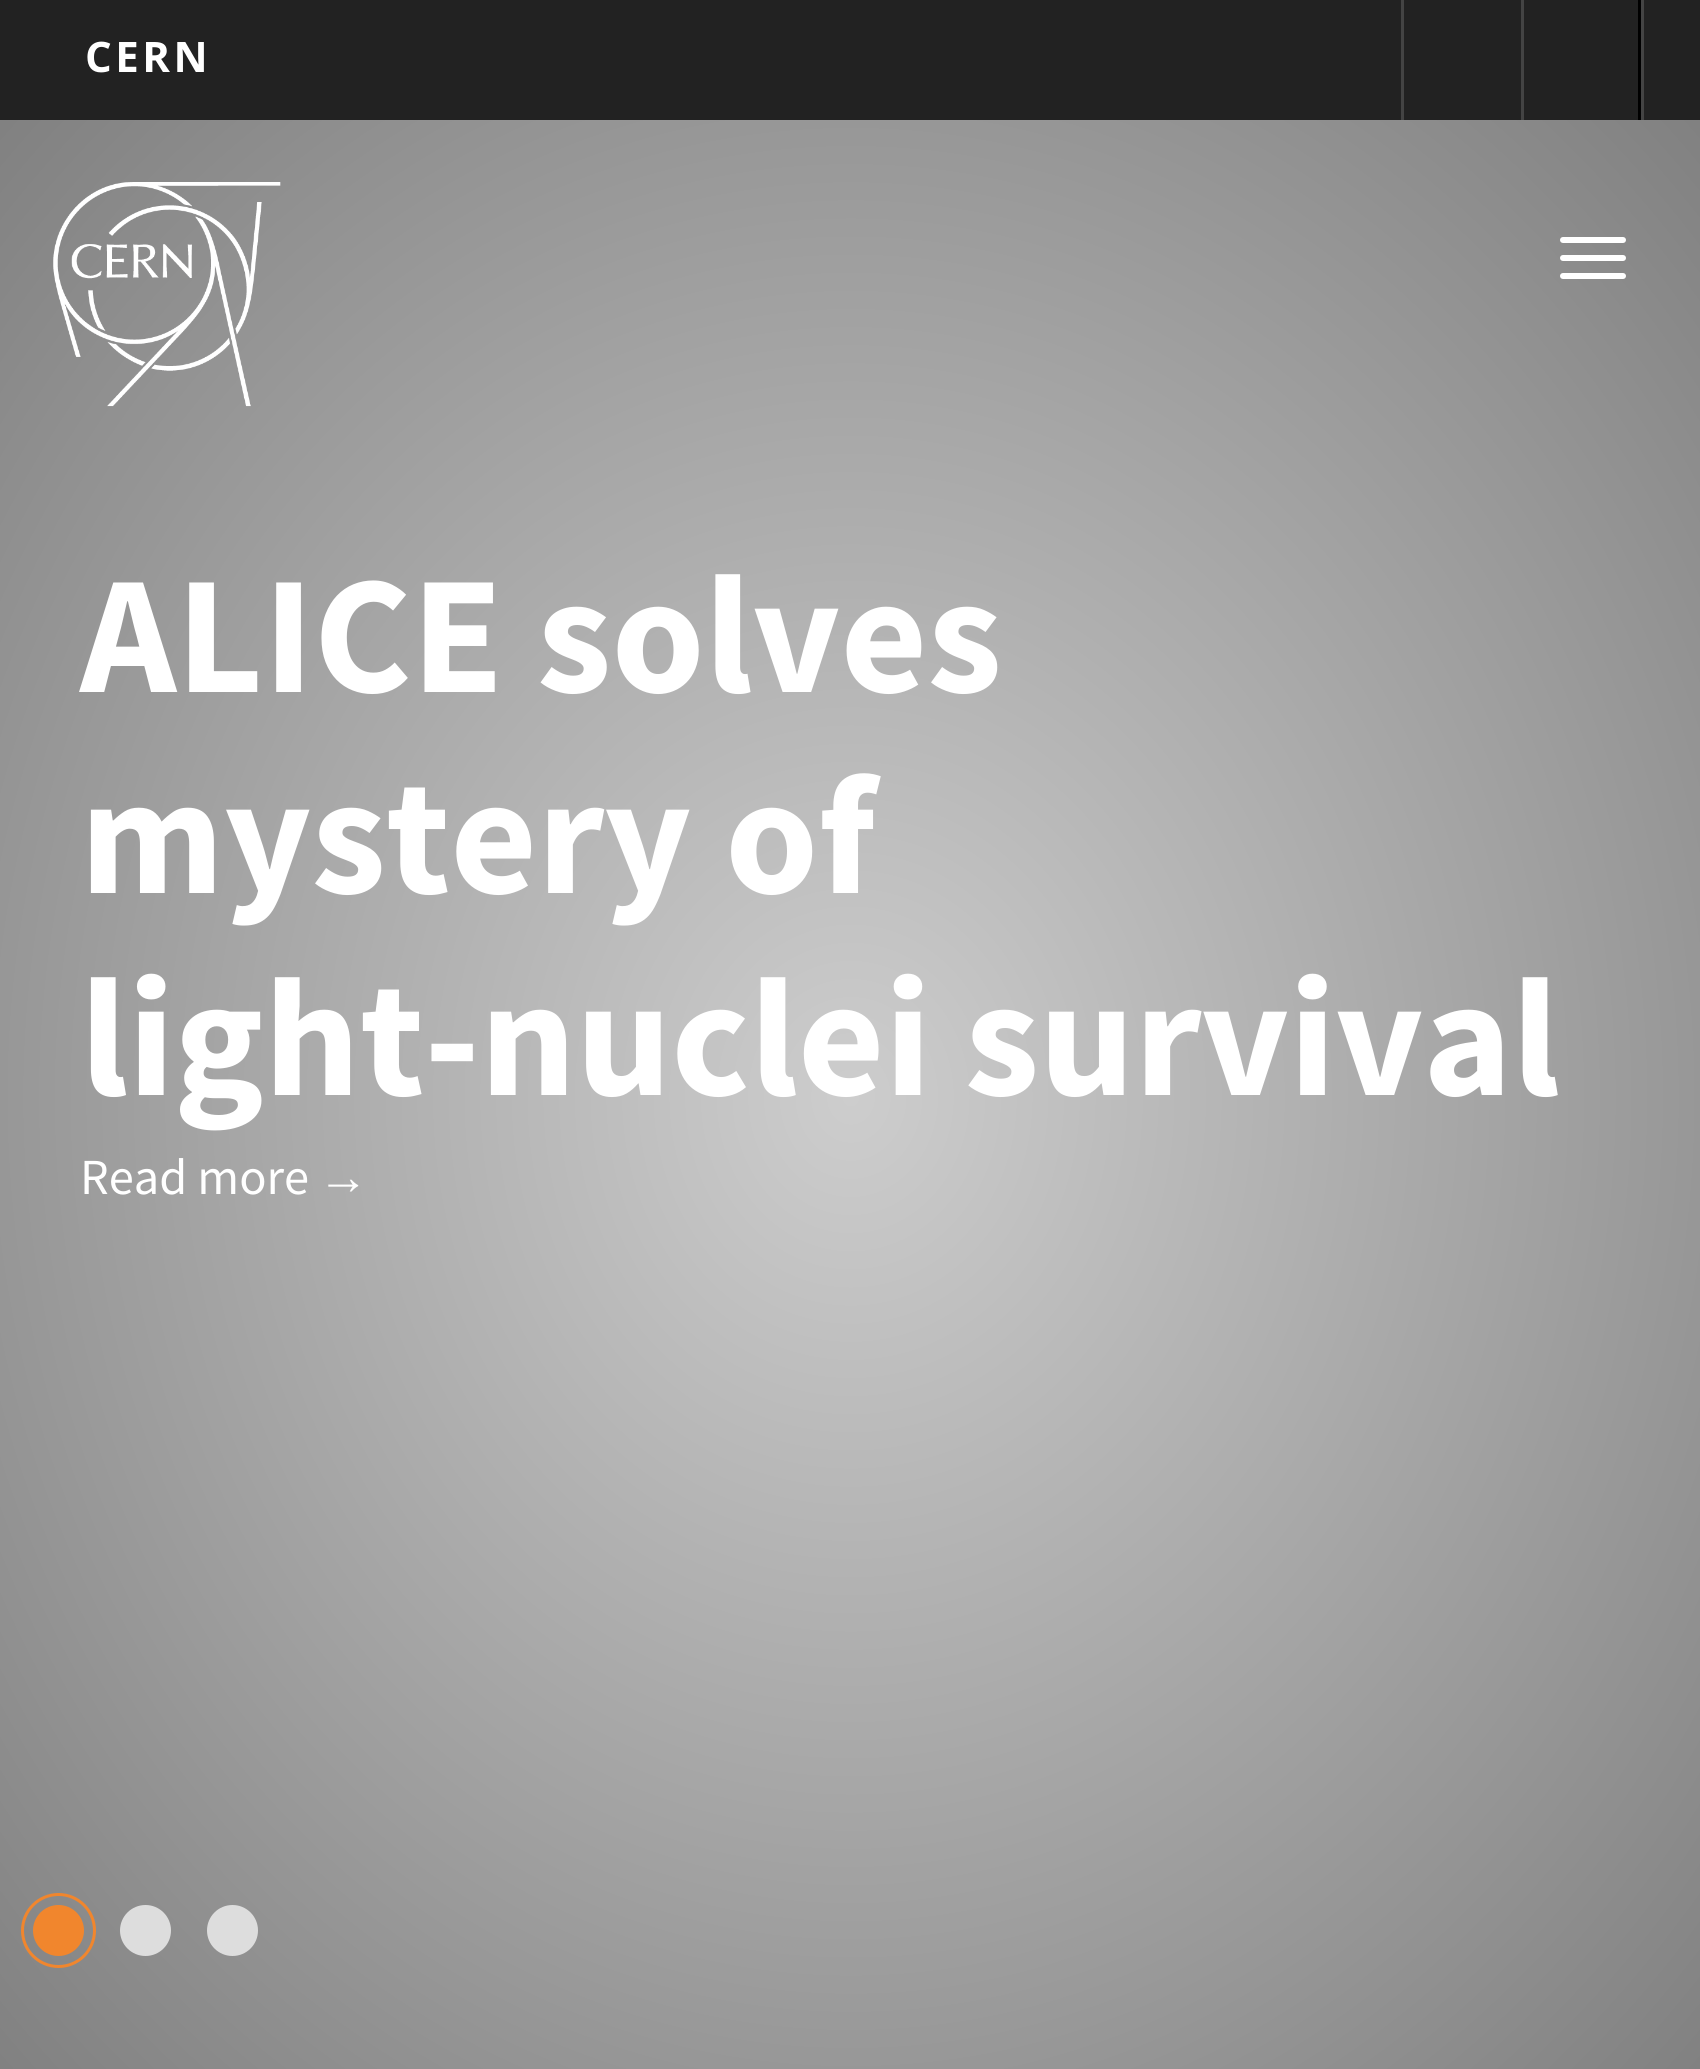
import math
import cairo


def use_color(cr, r, g, b):
  cr.set_source_rgb(r / 255, g / 255, b / 255)

def text(cr, x, y, s, family, size, color, bold=False, italic=False):
  cr.select_font_face(family, cairo.FONT_SLANT_ITALIC if italic else cairo.FONT_SLANT_NORMAL, cairo.FONT_WEIGHT_BOLD if bold else cairo.FONT_WEIGHT_NORMAL)
  cr.set_font_size(size)
  use_color(cr, *color)
  cr.move_to(x, y)
  cr.show_text(s)

def spaced_text(cr, x, y, s, letter, word):
  cr.move_to(x, y)
  for ch in s:
    cr.show_text(ch)
    cr.rel_move_to(letter + word * (ch == ' '), 0)

def box(cr, x, y, w, h, *color):
  use_color(cr, *color)
  cr.rectangle(x, y, w, h)
  cr.fill()

def round_rect(cr, x, y, w, h, r):
  cr.new_sub_path()
  for i, (u, v) in enumerate([(x + w - r, y + h - r), (x + r, y + h - r), (x + r, y + r), (x + w - r, y + r)]):
    cr.arc(u, v, r, i * math.pi / 2, (i + 1) * math.pi / 2)
  cr.close_path()

def picture(cr, path, x, y, w, h):
  cr.save()
  cr.set_source_surface(cairo.ImageSurface.create_from_png(path), x, y)
  cr.rectangle(x, y, w, h)
  cr.fill()
  cr.restore()

def draw(cr):
  use_color(cr, 34, 34, 34)
  cr.paint()
  box(cr, 1401, 0, 3, 120, 68, 68, 68)
  box(cr, 1641, 0, 3, 120, 68, 68, 68)
  box(cr, 1638, 0, 3, 120, 0, 0, 0)
  box(cr, 1521, 0, 3, 120, 68, 68, 68)
  gradient = cairo.RadialGradient(0, 0, 0, 0, 0, 1)
  gradient.set_matrix(cairo.Matrix(1 / 1211, 0, 0, 1 / 1381, -1 * 851 / 1211, -1 * 1097 / 1381))
  gradient.add_color_stop_rgba(0, 0.804, 0.804, 0.804, 1)
  gradient.add_color_stop_rgba(1, 0.502, 0.502, 0.502, 1)
  cr.set_source(gradient)
  cr.rectangle(0, 120, 1700, 1949)
  cr.fill()
  picture(cr, "img_01.png", 53, 182, 228, 225)
  use_color(cr, 255, 255, 255)
  round_rect(cr, 1560, 237, 66, 6, 3)
  cr.fill()
  round_rect(cr, 1560, 255, 66, 6, 3)
  cr.fill()
  round_rect(cr, 1560, 273, 66, 6, 3)
  cr.fill()
  cr.arc(58.5, 1930.5, 36, 0, 2 * math.pi)
  use_color(cr, 241, 134, 45)
  cr.set_line_width(3)
  cr.stroke()
  cr.arc(58.5, 1930.5, 25.5, 0, 2 * math.pi)
  cr.fill()
  use_color(cr, 221, 221, 221)
  cr.arc(145.5, 1930.5, 25.5, 0, 2 * math.pi)
  cr.fill()
  cr.arc(232.5, 1930.5, 25.5, 0, 2 * math.pi)
  cr.fill()
  cr.select_font_face("Open Sans", cairo.FONT_SLANT_NORMAL, cairo.FONT_WEIGHT_BOLD)
  cr.set_font_size(42)
  use_color(cr, 255, 255, 255)
  spaced_text(cr, 85, 72, "CERN", 3.5, 0)
  text(cr, 80, 692, "ALICE solves", "Source Sans Pro", 168, (255, 255, 255), bold=True)
  text(cr, 80, 893, "mystery of", "Source Sans Pro", 168, (255, 255, 255), bold=True)
  text(cr, 80, 1095, "light-nuclei survival", "Source Sans Pro", 168, (255, 255, 255), bold=True)
  text(cr, 80, 1194, "Read more", "Source Sans Pro", 50.5, (255, 255, 255))
  text(cr, 318, 1194, "→", "Liberation Serif", 50.5, (255, 255, 255))


surface = cairo.ImageSurface(cairo.FORMAT_RGB24, 1700, 2069)
cr = cairo.Context(surface)
options = cairo.FontOptions()
options.set_hint_metrics(cairo.HINT_METRICS_OFF)
options.set_hint_style(cairo.HINT_STYLE_NONE)
cr.set_font_options(options)
cr.set_miter_limit(4)
draw(cr)
surface.write_to_png("out.png")
